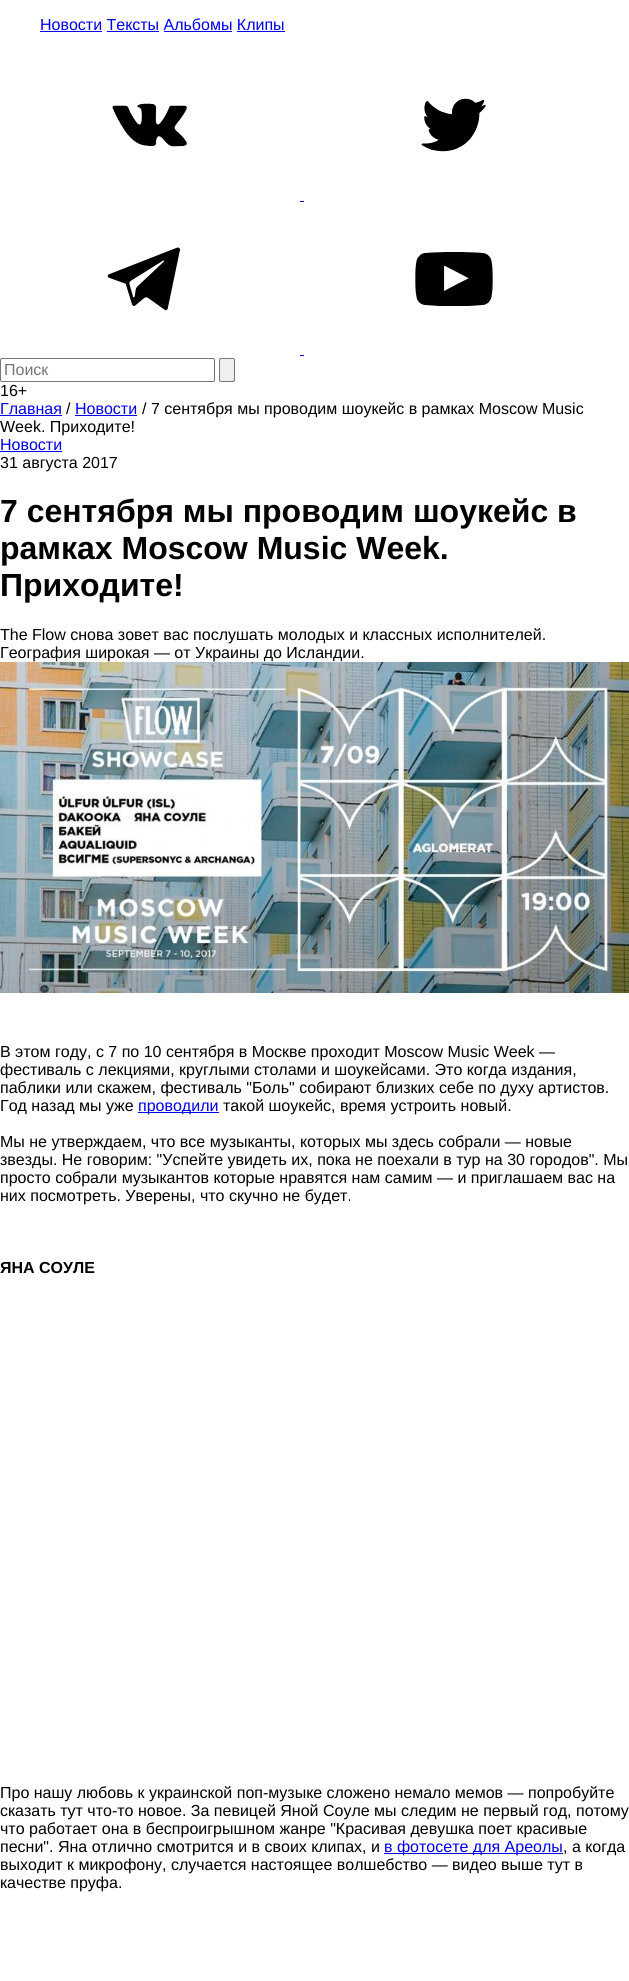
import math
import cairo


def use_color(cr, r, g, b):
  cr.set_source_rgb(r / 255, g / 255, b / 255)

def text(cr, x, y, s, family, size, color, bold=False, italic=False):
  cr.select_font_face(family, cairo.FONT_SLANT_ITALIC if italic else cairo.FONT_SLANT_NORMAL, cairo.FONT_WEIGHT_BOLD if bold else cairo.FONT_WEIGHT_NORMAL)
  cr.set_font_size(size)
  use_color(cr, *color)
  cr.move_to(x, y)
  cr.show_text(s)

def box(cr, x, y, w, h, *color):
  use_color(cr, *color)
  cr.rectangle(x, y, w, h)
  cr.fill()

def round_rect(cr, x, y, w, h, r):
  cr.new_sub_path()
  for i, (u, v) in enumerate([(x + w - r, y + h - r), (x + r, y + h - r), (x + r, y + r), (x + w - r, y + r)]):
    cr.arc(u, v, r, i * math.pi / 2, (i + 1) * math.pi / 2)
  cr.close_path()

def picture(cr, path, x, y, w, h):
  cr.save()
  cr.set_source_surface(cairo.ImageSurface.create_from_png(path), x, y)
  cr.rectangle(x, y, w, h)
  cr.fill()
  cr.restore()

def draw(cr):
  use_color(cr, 255, 255, 255)
  cr.paint()
  box(cr, 40, 31, 62, 1, 0, 0, 238)
  box(cr, 107, 31, 52, 1, 0, 0, 238)
  box(cr, 164, 31, 68, 1, 0, 0, 238)
  box(cr, 237, 31, 48, 1, 0, 0, 238)
  picture(cr, "img_01.png", 112, 103, 75, 44)
  picture(cr, "img_02.png", 421, 98, 65, 54)
  box(cr, 300, 201, 4, 1, 0, 0, 238)
  picture(cr, "img_03.png", 107, 247, 73, 64)
  picture(cr, "img_04.png", 415, 252, 78, 54)
  box(cr, 300, 355, 4, 1, 0, 0, 238)
  round_rect(cr, 0.5, 358.5, 214, 23, 1.5)
  use_color(cr, 118, 118, 118)
  cr.set_line_width(1)
  cr.stroke()
  use_color(cr, 239, 239, 239)
  round_rect(cr, 219.5, 358.5, 15, 23, 1.5)
  cr.fill_preserve()
  use_color(cr, 118, 118, 118)
  cr.stroke()
  box(cr, 0, 415, 62, 1, 0, 0, 238)
  box(cr, 75, 415, 62, 1, 0, 0, 238)
  box(cr, 0, 451, 62, 1, 0, 0, 238)
  picture(cr, "img_05.png", 0, 662, 629, 331)
  box(cr, 138, 1112, 81, 1, 0, 0, 238)
  box(cr, 384, 1853, 179, 1, 0, 0, 238)
  text(cr, 40, 30, "Новости Тексты Альбомы Клипы", "Liberation Sans", 16, (0, 0, 238))
  text(cr, 4, 375, "Поиск", "Liberation Sans", 16, (117, 117, 117))
  text(cr, 0, 396, "16+", "Liberation Sans", 16, (0, 0, 0))
  text(cr, 0, 414, "Главная", "Liberation Sans", 16, (0, 0, 238))
  text(cr, 66, 414, "/", "Liberation Sans", 16, (0, 0, 0))
  text(cr, 75, 414, "Новости", "Liberation Sans", 16, (0, 0, 238))
  text(cr, 142, 414, "/ 7 сентября мы проводим шоукейс в рамках Moscow Music", "Liberation Sans", 16, (0, 0, 0))
  text(cr, 0, 432, "Week. Приходите!", "Liberation Sans", 16, (0, 0, 0))
  text(cr, 0, 450, "Новости", "Liberation Sans", 16, (0, 0, 238))
  text(cr, 0, 468, "31 августа 2017", "Liberation Sans", 16, (0, 0, 0))
  text(cr, 0, 522, "7 сентября мы проводим шоукейс в", "Liberation Sans", 32, (0, 0, 0), bold=True)
  text(cr, 0, 559, "рамках Moscow Music Week.", "Liberation Sans", 32, (0, 0, 0), bold=True)
  text(cr, 0, 596, "Приходите!", "Liberation Sans", 32, (0, 0, 0), bold=True)
  text(cr, 0, 640, "The Flow снова зовет вас послушать молодых и классных исполнителей.", "Liberation Sans", 16, (0, 0, 0))
  text(cr, 0, 658, "География широкая — от Украины до Исландии.", "Liberation Sans", 16, (0, 0, 0))
  text(cr, 0, 1057, "В этом году, с 7 по 10 сентября в Москве проходит Moscow Music Week —", "Liberation Sans", 16, (0, 0, 0))
  text(cr, 0, 1075, "фестиваль с лекциями, круглыми столами и шоукейсами. Это когда издания,", "Liberation Sans", 16, (0, 0, 0))
  text(cr, 0, 1093, "паблики или скажем, фестиваль \"Боль\" собирают близких себе по духу артистов.", "Liberation Sans", 16, (0, 0, 0))
  text(cr, 0, 1111, "Год назад мы уже", "Liberation Sans", 16, (0, 0, 0))
  text(cr, 138, 1111, "проводили", "Liberation Sans", 16, (0, 0, 238))
  text(cr, 223, 1111, "такой шоукейс, время устроить новый.", "Liberation Sans", 16, (0, 0, 0))
  text(cr, 0, 1147, "Мы не утверждаем, что все музыканты, которых мы здесь собрали — новые", "Liberation Sans", 16, (0, 0, 0))
  text(cr, 0, 1165, "звезды. Не говорим: \"Успейте увидеть их, пока не поехали в тур на 30 городов\". Мы", "Liberation Sans", 16, (0, 0, 0))
  text(cr, 0, 1183, "просто собрали музыкантов которые нравятся нам самим — и приглашаем вас на", "Liberation Sans", 16, (0, 0, 0))
  text(cr, 0, 1201, "них посмотреть. Уверены, что скучно не будет.", "Liberation Sans", 16, (0, 0, 0))
  text(cr, 0, 1273, "ЯНА СОУЛЕ", "Liberation Sans", 16, (0, 0, 0), bold=True)
  text(cr, 0, 1798, "Про нашу любовь к украинской поп-музыке сложено немало мемов — попробуйте", "Liberation Sans", 16, (0, 0, 0))
  text(cr, 0, 1816, "сказать тут что-то новое. За певицей Яной Соуле мы следим не первый год, потому", "Liberation Sans", 16, (0, 0, 0))
  text(cr, 0, 1834, "что работает она в беспроигрышном жанре \"Красивая девушка поет красивые", "Liberation Sans", 16, (0, 0, 0))
  text(cr, 0, 1852, "песни\". Яна отлично смотрится и в своих клипах, и", "Liberation Sans", 16, (0, 0, 0))
  text(cr, 384, 1852, "в фотосете для Ареолы", "Liberation Sans", 16, (0, 0, 238))
  text(cr, 563, 1852, ", а когда", "Liberation Sans", 16, (0, 0, 0))
  text(cr, 0, 1870, "выходит к микрофону, случается настоящее волшебство — видео выше тут в", "Liberation Sans", 16, (0, 0, 0))
  text(cr, 0, 1888, "качестве пруфа.", "Liberation Sans", 16, (0, 0, 0))


surface = cairo.ImageSurface(cairo.FORMAT_RGB24, 629, 1981)
cr = cairo.Context(surface)
options = cairo.FontOptions()
options.set_hint_metrics(cairo.HINT_METRICS_OFF)
options.set_hint_style(cairo.HINT_STYLE_NONE)
cr.set_font_options(options)
cr.set_miter_limit(4)
draw(cr)
surface.write_to_png("out.png")
